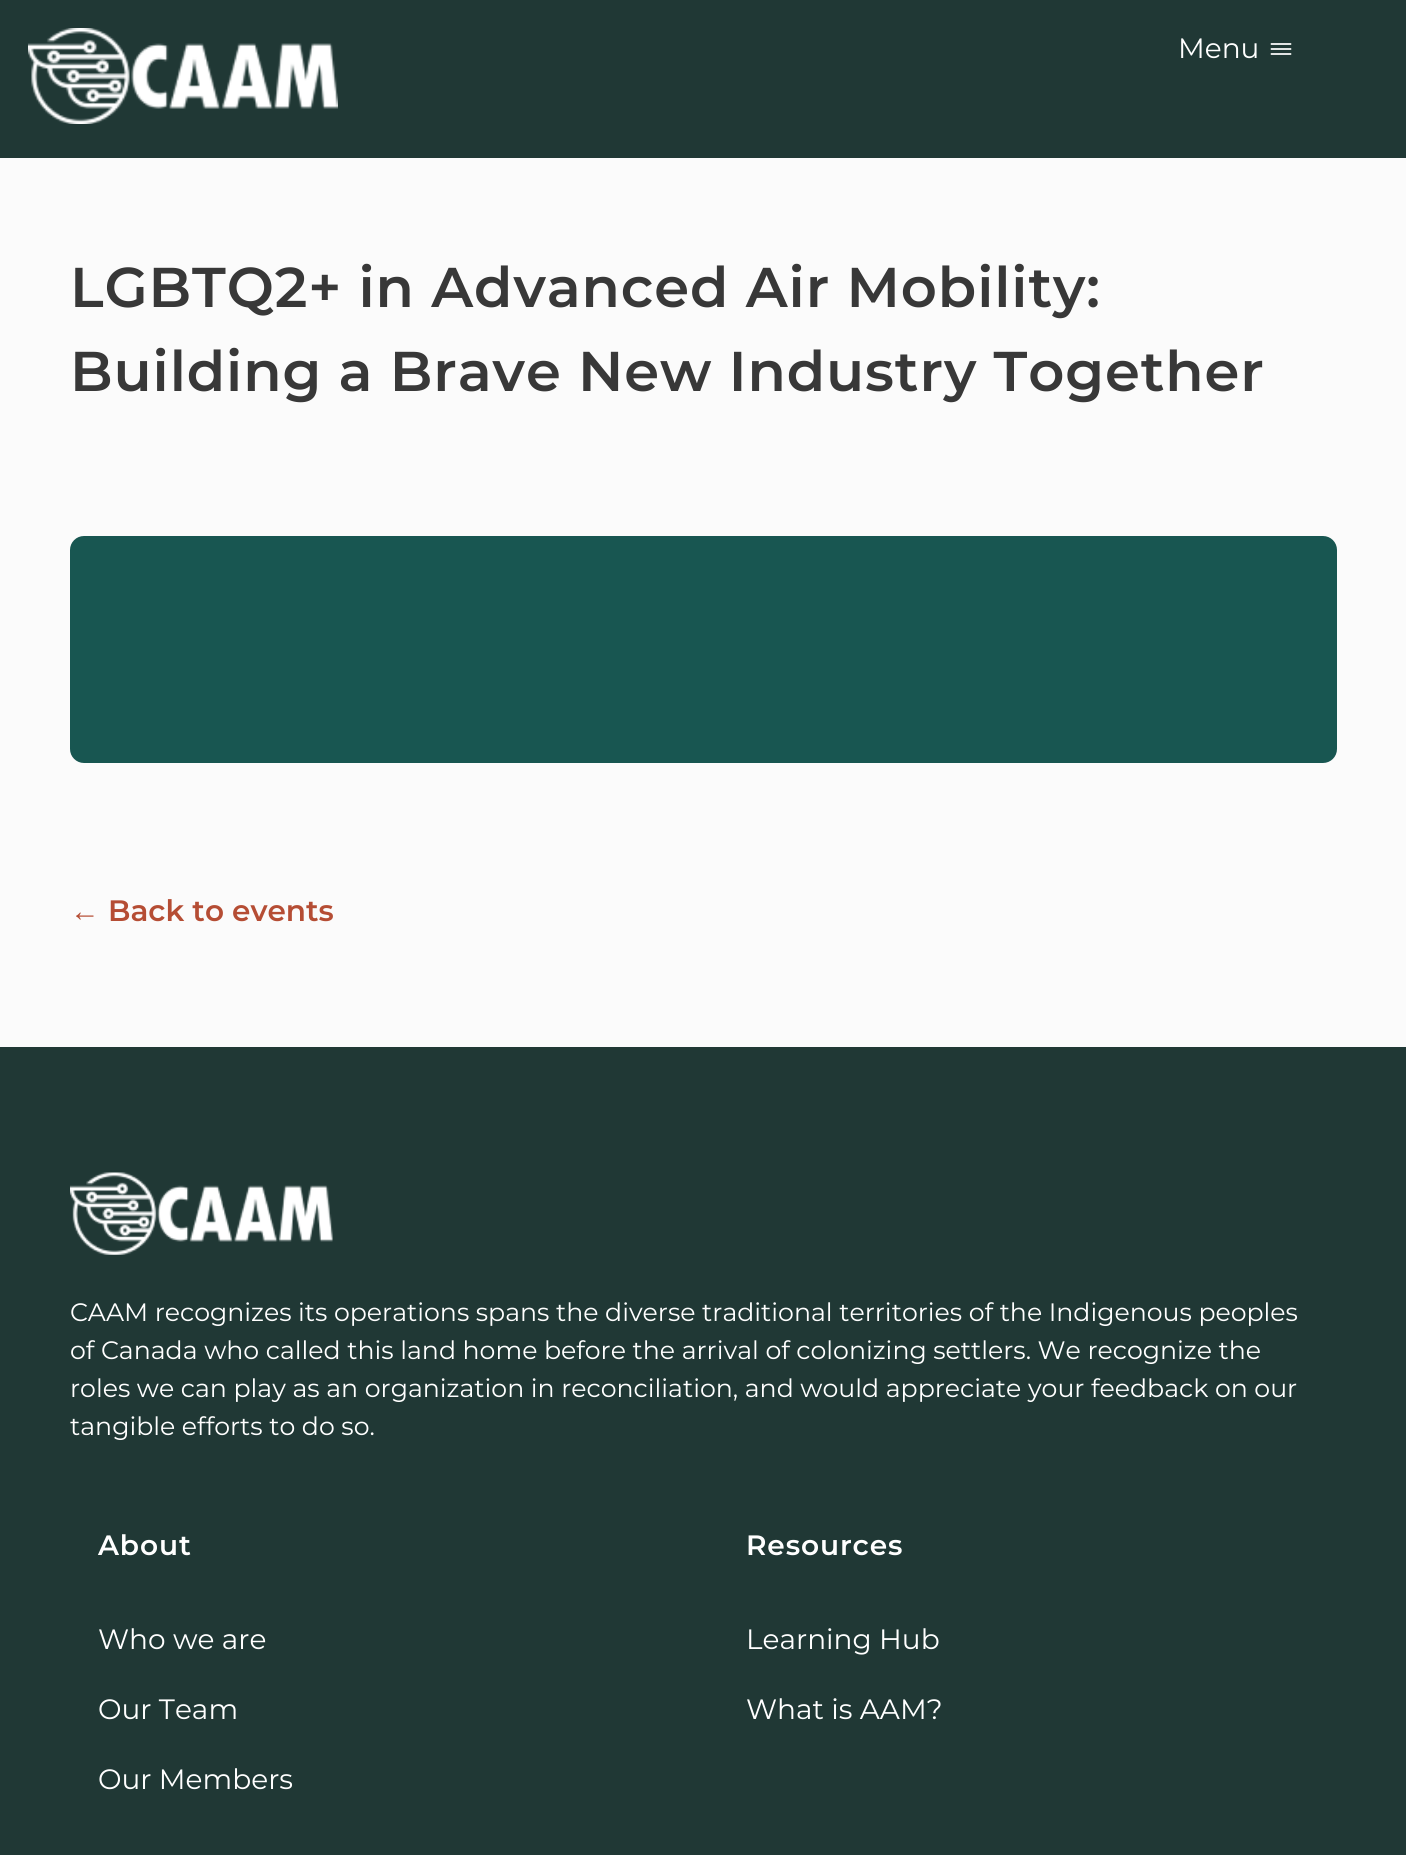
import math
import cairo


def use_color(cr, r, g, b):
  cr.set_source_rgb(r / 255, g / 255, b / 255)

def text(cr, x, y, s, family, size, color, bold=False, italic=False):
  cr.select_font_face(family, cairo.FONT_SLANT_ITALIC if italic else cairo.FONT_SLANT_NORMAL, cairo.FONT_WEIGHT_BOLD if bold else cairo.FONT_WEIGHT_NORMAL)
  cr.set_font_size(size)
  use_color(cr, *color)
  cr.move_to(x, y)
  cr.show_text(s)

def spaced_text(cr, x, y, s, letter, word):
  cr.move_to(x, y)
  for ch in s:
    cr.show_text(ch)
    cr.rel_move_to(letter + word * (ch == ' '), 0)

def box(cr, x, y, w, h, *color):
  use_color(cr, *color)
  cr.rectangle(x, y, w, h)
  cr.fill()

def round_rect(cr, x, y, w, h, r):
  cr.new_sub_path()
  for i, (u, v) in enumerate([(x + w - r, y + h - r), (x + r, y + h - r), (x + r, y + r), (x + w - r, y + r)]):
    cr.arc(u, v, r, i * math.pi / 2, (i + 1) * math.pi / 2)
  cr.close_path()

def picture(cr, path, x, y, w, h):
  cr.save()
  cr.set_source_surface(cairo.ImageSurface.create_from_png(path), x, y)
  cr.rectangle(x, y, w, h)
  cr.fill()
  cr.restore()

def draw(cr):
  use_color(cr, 251, 251, 251)
  cr.paint()
  box(cr, 0, 0, 1406, 158, 32, 56, 53)
  picture(cr, "img_01.png", 28, 28, 310, 96)
  cr.new_path()
  cr.move_to(1271.5, 44)
  cr.line_to(1290.5, 44)
  cr.move_to(1271.5, 49)
  cr.line_to(1290.5, 49)
  cr.move_to(1271.5, 54)
  cr.line_to(1290.5, 54)
  use_color(cr, 255, 255, 255)
  cr.set_line_width(1.8)
  cr.set_line_cap(cairo.LINE_CAP_ROUND)
  cr.stroke()
  use_color(cr, 24, 86, 81)
  round_rect(cr, 70, 536, 1267, 227, 14)
  cr.fill()
  box(cr, 0, 1047, 1406, 808, 32, 56, 53)
  picture(cr, "img_02.png", 70, 1172, 263, 83)
  text(cr, 1178, 58, "Menu", "Montserrat", 28, (255, 255, 255))
  cr.select_font_face("Montserrat SemiBold")
  cr.set_font_size(56)
  use_color(cr, 56, 56, 56)
  spaced_text(cr, 70, 307, "LGBTQ2+ in Advanced Air Mobility:", 0.9, 0)
  spaced_text(cr, 70, 391, "Building a Brave New Industry Together", 0.9, 0)
  text(cr, 70, 921, "←", "Liberation Sans", 29.5, (181, 77, 52), bold=True)
  text(cr, 108, 921, "Back to events", "Montserrat SemiBold", 29.5, (181, 77, 52))
  text(cr, 70, 1321, "CAAM recognizes its operations spans the diverse traditional territories of the Indigenous peoples", "Montserrat", 25.2, (255, 255, 255))
  text(cr, 70, 1359, "of Canada who called this land home before the arrival of colonizing settlers. We recognize the", "Montserrat", 25.2, (255, 255, 255))
  text(cr, 70, 1397, "roles we can play as an organization in reconciliation, and would appreciate your feedback on our", "Montserrat", 25.2, (255, 255, 255))
  text(cr, 70, 1435, "tangible efforts to do so.", "Montserrat", 25.2, (255, 255, 255))
  cr.select_font_face("Montserrat SemiBold")
  cr.set_font_size(28)
  spaced_text(cr, 98, 1555, "About", 0.9, 0)
  text(cr, 98, 1649, "Who we are", "Montserrat", 28, (255, 255, 255))
  text(cr, 98, 1719, "Our Team", "Montserrat", 28, (255, 255, 255))
  text(cr, 98, 1789, "Our Members", "Montserrat", 28, (255, 255, 255))
  cr.select_font_face("Montserrat SemiBold")
  spaced_text(cr, 746, 1555, "Resources", 0.9, 0)
  text(cr, 746, 1649, "Learning Hub", "Montserrat", 28, (255, 255, 255))
  text(cr, 746, 1719, "What is AAM?", "Montserrat", 28, (255, 255, 255))


surface = cairo.ImageSurface(cairo.FORMAT_RGB24, 1406, 1855)
cr = cairo.Context(surface)
options = cairo.FontOptions()
options.set_hint_metrics(cairo.HINT_METRICS_OFF)
options.set_hint_style(cairo.HINT_STYLE_NONE)
cr.set_font_options(options)
cr.set_miter_limit(4)
draw(cr)
surface.write_to_png("out.png")
